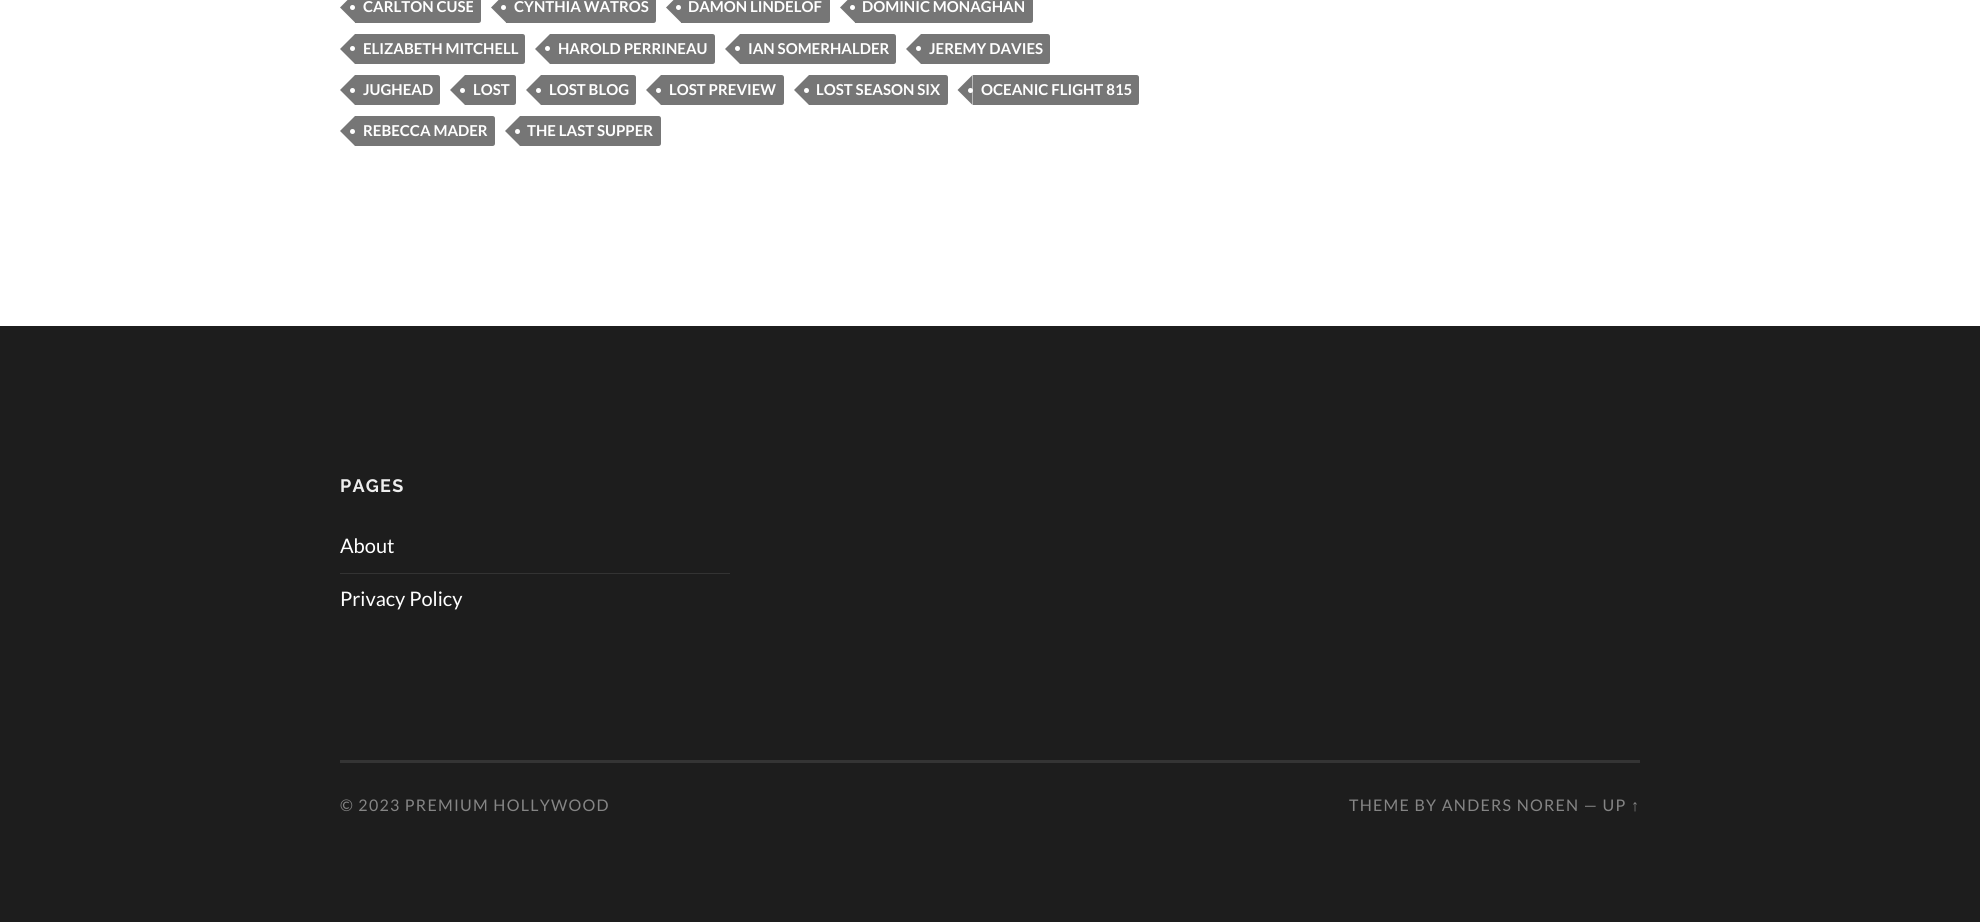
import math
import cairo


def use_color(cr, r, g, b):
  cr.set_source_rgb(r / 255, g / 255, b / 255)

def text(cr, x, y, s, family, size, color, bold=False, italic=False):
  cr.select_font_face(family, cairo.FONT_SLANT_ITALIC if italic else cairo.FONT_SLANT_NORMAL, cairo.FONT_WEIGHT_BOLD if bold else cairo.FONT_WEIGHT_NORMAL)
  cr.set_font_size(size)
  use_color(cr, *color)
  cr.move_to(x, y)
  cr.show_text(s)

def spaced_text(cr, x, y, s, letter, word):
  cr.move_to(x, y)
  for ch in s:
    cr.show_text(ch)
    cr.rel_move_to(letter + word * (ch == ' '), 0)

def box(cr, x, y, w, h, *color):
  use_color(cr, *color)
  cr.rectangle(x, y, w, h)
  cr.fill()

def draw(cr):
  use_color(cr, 255, 255, 255)
  cr.paint()
  use_color(cr, 118, 118, 118)
  cr.new_path()
  cr.move_to(355, -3)
  cr.line_to(478.5, -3)
  cr.curve_to(480, -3, 481, -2, 481, -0.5)
  cr.line_to(481, 20.5)
  cr.curve_to(481, 22, 480, 23, 478.5, 23)
  cr.line_to(355, 23)
  cr.close_path()
  cr.fill()
  cr.new_path()
  cr.move_to(355, -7.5)
  cr.line_to(355, 22.5)
  cr.line_to(340, 7.5)
  cr.close_path()
  cr.fill()
  use_color(cr, 255, 255, 255)
  cr.arc(352.5, 7.5, 2.5, 0, 2 * math.pi)
  cr.fill()
  use_color(cr, 118, 118, 118)
  cr.new_path()
  cr.move_to(506, -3)
  cr.line_to(653.5, -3)
  cr.curve_to(655, -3, 656, -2, 656, -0.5)
  cr.line_to(656, 20.5)
  cr.curve_to(656, 22, 655, 23, 653.5, 23)
  cr.line_to(506, 23)
  cr.close_path()
  cr.fill()
  cr.new_path()
  cr.move_to(506, -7.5)
  cr.line_to(506, 22.5)
  cr.line_to(491, 7.5)
  cr.close_path()
  cr.fill()
  use_color(cr, 255, 255, 255)
  cr.arc(503.5, 7.5, 2.5, 0, 2 * math.pi)
  cr.fill()
  use_color(cr, 118, 118, 118)
  cr.new_path()
  cr.move_to(681, -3)
  cr.line_to(827.5, -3)
  cr.curve_to(829, -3, 830, -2, 830, -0.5)
  cr.line_to(830, 20.5)
  cr.curve_to(830, 22, 829, 23, 827.5, 23)
  cr.line_to(681, 23)
  cr.close_path()
  cr.fill()
  cr.new_path()
  cr.move_to(681, -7.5)
  cr.line_to(681, 22.5)
  cr.line_to(666, 7.5)
  cr.close_path()
  cr.fill()
  use_color(cr, 255, 255, 255)
  cr.arc(678.5, 7.5, 2.5, 0, 2 * math.pi)
  cr.fill()
  use_color(cr, 118, 118, 118)
  cr.new_path()
  cr.move_to(855, -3)
  cr.line_to(1030.5, -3)
  cr.curve_to(1032, -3, 1033, -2, 1033, -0.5)
  cr.line_to(1033, 20.5)
  cr.curve_to(1033, 22, 1032, 23, 1030.5, 23)
  cr.line_to(855, 23)
  cr.close_path()
  cr.fill()
  cr.new_path()
  cr.move_to(855, -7.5)
  cr.line_to(855, 22.5)
  cr.line_to(840, 7.5)
  cr.close_path()
  cr.fill()
  use_color(cr, 255, 255, 255)
  cr.arc(852.5, 7.5, 2.5, 0, 2 * math.pi)
  cr.fill()
  use_color(cr, 118, 118, 118)
  cr.new_path()
  cr.move_to(355, 34)
  cr.line_to(522.5, 34)
  cr.curve_to(524, 34, 525, 35, 525, 36.5)
  cr.line_to(525, 61.5)
  cr.curve_to(525, 63, 524, 64, 522.5, 64)
  cr.line_to(355, 64)
  cr.close_path()
  cr.fill()
  cr.new_path()
  cr.move_to(355, 34)
  cr.line_to(355, 64)
  cr.line_to(340, 49)
  cr.close_path()
  cr.fill()
  use_color(cr, 255, 255, 255)
  cr.arc(352.5, 48.5, 2.5, 0, 2 * math.pi)
  cr.fill()
  use_color(cr, 118, 118, 118)
  cr.new_path()
  cr.move_to(550, 34)
  cr.line_to(712.5, 34)
  cr.curve_to(714, 34, 715, 35, 715, 36.5)
  cr.line_to(715, 61.5)
  cr.curve_to(715, 63, 714, 64, 712.5, 64)
  cr.line_to(550, 64)
  cr.close_path()
  cr.fill()
  cr.new_path()
  cr.move_to(550, 34)
  cr.line_to(550, 64)
  cr.line_to(535, 49)
  cr.close_path()
  cr.fill()
  use_color(cr, 255, 255, 255)
  cr.arc(547.5, 48.5, 2.5, 0, 2 * math.pi)
  cr.fill()
  use_color(cr, 118, 118, 118)
  cr.new_path()
  cr.move_to(740, 34)
  cr.line_to(893.5, 34)
  cr.curve_to(895, 34, 896, 35, 896, 36.5)
  cr.line_to(896, 61.5)
  cr.curve_to(896, 63, 895, 64, 893.5, 64)
  cr.line_to(740, 64)
  cr.close_path()
  cr.fill()
  cr.new_path()
  cr.move_to(740, 34)
  cr.line_to(740, 64)
  cr.line_to(725, 49)
  cr.close_path()
  cr.fill()
  use_color(cr, 255, 255, 255)
  cr.arc(737.5, 48.5, 2.5, 0, 2 * math.pi)
  cr.fill()
  use_color(cr, 118, 118, 118)
  cr.new_path()
  cr.move_to(921, 34)
  cr.line_to(1047.5, 34)
  cr.curve_to(1049, 34, 1050, 35, 1050, 36.5)
  cr.line_to(1050, 61.5)
  cr.curve_to(1050, 63, 1049, 64, 1047.5, 64)
  cr.line_to(921, 64)
  cr.close_path()
  cr.fill()
  cr.new_path()
  cr.move_to(921, 34)
  cr.line_to(921, 64)
  cr.line_to(906, 49)
  cr.close_path()
  cr.fill()
  use_color(cr, 255, 255, 255)
  cr.arc(918.5, 48.5, 2.5, 0, 2 * math.pi)
  cr.fill()
  use_color(cr, 118, 118, 118)
  cr.new_path()
  cr.move_to(355, 75)
  cr.line_to(437.5, 75)
  cr.curve_to(439, 75, 440, 76, 440, 77.5)
  cr.line_to(440, 102.5)
  cr.curve_to(440, 104, 439, 105, 437.5, 105)
  cr.line_to(355, 105)
  cr.close_path()
  cr.fill()
  cr.new_path()
  cr.move_to(355, 75)
  cr.line_to(355, 105)
  cr.line_to(340, 90)
  cr.close_path()
  cr.fill()
  use_color(cr, 255, 255, 255)
  cr.arc(352.5, 90.5, 2.5, 0, 2 * math.pi)
  cr.fill()
  use_color(cr, 118, 118, 118)
  cr.new_path()
  cr.move_to(465, 75)
  cr.line_to(513.5, 75)
  cr.curve_to(515, 75, 516, 76, 516, 77.5)
  cr.line_to(516, 102.5)
  cr.curve_to(516, 104, 515, 105, 513.5, 105)
  cr.line_to(465, 105)
  cr.close_path()
  cr.fill()
  cr.new_path()
  cr.move_to(465, 75)
  cr.line_to(465, 105)
  cr.line_to(450, 90)
  cr.close_path()
  cr.fill()
  use_color(cr, 255, 255, 255)
  cr.arc(462.5, 90.5, 2.5, 0, 2 * math.pi)
  cr.fill()
  use_color(cr, 118, 118, 118)
  cr.new_path()
  cr.move_to(541, 75)
  cr.line_to(633.5, 75)
  cr.curve_to(635, 75, 636, 76, 636, 77.5)
  cr.line_to(636, 102.5)
  cr.curve_to(636, 104, 635, 105, 633.5, 105)
  cr.line_to(541, 105)
  cr.close_path()
  cr.fill()
  cr.new_path()
  cr.move_to(541, 75)
  cr.line_to(541, 105)
  cr.line_to(526, 90)
  cr.close_path()
  cr.fill()
  use_color(cr, 255, 255, 255)
  cr.arc(538.5, 90.5, 2.5, 0, 2 * math.pi)
  cr.fill()
  use_color(cr, 118, 118, 118)
  cr.new_path()
  cr.move_to(661, 75)
  cr.line_to(781.5, 75)
  cr.curve_to(783, 75, 784, 76, 784, 77.5)
  cr.line_to(784, 102.5)
  cr.curve_to(784, 104, 783, 105, 781.5, 105)
  cr.line_to(661, 105)
  cr.close_path()
  cr.fill()
  cr.new_path()
  cr.move_to(661, 75)
  cr.line_to(661, 105)
  cr.line_to(646, 90)
  cr.close_path()
  cr.fill()
  use_color(cr, 255, 255, 255)
  cr.arc(658.5, 90.5, 2.5, 0, 2 * math.pi)
  cr.fill()
  use_color(cr, 118, 118, 118)
  cr.new_path()
  cr.move_to(809, 75)
  cr.line_to(945.5, 75)
  cr.curve_to(947, 75, 948, 76, 948, 77.5)
  cr.line_to(948, 102.5)
  cr.curve_to(948, 104, 947, 105, 945.5, 105)
  cr.line_to(809, 105)
  cr.close_path()
  cr.fill()
  cr.new_path()
  cr.move_to(809, 75)
  cr.line_to(809, 105)
  cr.line_to(794, 90)
  cr.close_path()
  cr.fill()
  use_color(cr, 255, 255, 255)
  cr.arc(806.5, 90.5, 2.5, 0, 2 * math.pi)
  cr.fill()
  use_color(cr, 118, 118, 118)
  cr.new_path()
  cr.move_to(973, 75)
  cr.line_to(1136.5, 75)
  cr.curve_to(1138, 75, 1139, 76, 1139, 77.5)
  cr.line_to(1139, 102.5)
  cr.curve_to(1139, 104, 1138, 105, 1136.5, 105)
  cr.line_to(973, 105)
  cr.close_path()
  cr.fill()
  cr.new_path()
  cr.move_to(972.5, 75)
  cr.line_to(972.5, 105)
  cr.line_to(957.5, 90)
  cr.close_path()
  cr.fill()
  use_color(cr, 255, 255, 255)
  cr.arc(970.5, 90.5, 2.5, 0, 2 * math.pi)
  cr.fill()
  use_color(cr, 118, 118, 118)
  cr.new_path()
  cr.move_to(355, 116)
  cr.line_to(492.5, 116)
  cr.curve_to(494, 116, 495, 117, 495, 118.5)
  cr.line_to(495, 143.5)
  cr.curve_to(495, 145, 494, 146, 492.5, 146)
  cr.line_to(355, 146)
  cr.close_path()
  cr.fill()
  cr.new_path()
  cr.move_to(355, 116)
  cr.line_to(355, 146)
  cr.line_to(340, 131)
  cr.close_path()
  cr.fill()
  use_color(cr, 255, 255, 255)
  cr.arc(352.5, 131.5, 2.5, 0, 2 * math.pi)
  cr.fill()
  use_color(cr, 118, 118, 118)
  cr.new_path()
  cr.move_to(520, 116)
  cr.line_to(658.5, 116)
  cr.curve_to(660, 116, 661, 117, 661, 118.5)
  cr.line_to(661, 143.5)
  cr.curve_to(661, 145, 660, 146, 658.5, 146)
  cr.line_to(520, 146)
  cr.close_path()
  cr.fill()
  cr.new_path()
  cr.move_to(520, 116)
  cr.line_to(520, 146)
  cr.line_to(505, 131)
  cr.close_path()
  cr.fill()
  use_color(cr, 255, 255, 255)
  cr.arc(517.5, 131.5, 2.5, 0, 2 * math.pi)
  cr.fill()
  box(cr, 0, 326, 1980, 596, 29, 29, 29)
  box(cr, 340, 573, 390, 1, 51, 51, 51)
  box(cr, 340, 760, 1300, 3, 52, 52, 52)
  text(cr, 363, 12, "CARLTON CUSE", "Lato", 15, (255, 255, 255), bold=True)
  text(cr, 514, 12, "CYNTHIA WATROS", "Lato", 15, (255, 255, 255), bold=True)
  text(cr, 688, 12, "DAMON LINDELOF", "Lato", 15, (255, 255, 255), bold=True)
  text(cr, 862, 12, "DOMINIC MONAGHAN", "Lato", 15, (255, 255, 255), bold=True)
  text(cr, 363, 54, "ELIZABETH MITCHELL", "Lato", 15, (255, 255, 255), bold=True)
  text(cr, 558, 54, "HAROLD PERRINEAU", "Lato", 15, (255, 255, 255), bold=True)
  text(cr, 748, 54, "IAN SOMERHALDER", "Lato", 15, (255, 255, 255), bold=True)
  text(cr, 929, 54, "JEREMY DAVIES", "Lato", 15, (255, 255, 255), bold=True)
  text(cr, 363, 95, "JUGHEAD", "Lato", 15, (255, 255, 255), bold=True)
  text(cr, 473, 95, "LOST", "Lato", 15, (255, 255, 255), bold=True)
  text(cr, 549, 95, "LOST BLOG", "Lato", 15, (255, 255, 255), bold=True)
  text(cr, 669, 95, "LOST PREVIEW", "Lato", 15, (255, 255, 255), bold=True)
  text(cr, 816, 95, "LOST SEASON SIX", "Lato", 15, (255, 255, 255), bold=True)
  text(cr, 981, 95, "OCEANIC FLIGHT 815", "Lato", 15, (255, 255, 255), bold=True)
  text(cr, 363, 136, "REBECCA MADER", "Lato", 15, (255, 255, 255), bold=True)
  text(cr, 527, 136, "THE LAST SUPPER", "Lato", 15, (255, 255, 255), bold=True)
  cr.select_font_face("Raleway", cairo.FONT_SLANT_NORMAL, cairo.FONT_WEIGHT_BOLD)
  cr.set_font_size(18)
  use_color(cr, 238, 238, 238)
  spaced_text(cr, 340, 492, "PAGES", 1.25, 0)
  text(cr, 340, 553, "About", "Lato", 20, (255, 255, 255))
  text(cr, 340, 606, "Privacy Policy", "Lato", 20, (255, 255, 255))
  cr.set_font_size(16)
  use_color(cr, 133, 133, 133)
  spaced_text(cr, 340, 811, "© 2023 PREMIUM HOLLYWOOD", 1.25, 0)
  spaced_text(cr, 1349, 811, "THEME BY ANDERS NOREN — UP", 1.25, 0)
  cr.select_font_face("Liberation Sans")
  spaced_text(cr, 1631, 811, "↑", 1.25, 0)


surface = cairo.ImageSurface(cairo.FORMAT_RGB24, 1980, 922)
cr = cairo.Context(surface)
options = cairo.FontOptions()
options.set_hint_metrics(cairo.HINT_METRICS_OFF)
options.set_hint_style(cairo.HINT_STYLE_NONE)
cr.set_font_options(options)
cr.set_miter_limit(4)
draw(cr)
surface.write_to_png("out.png")
